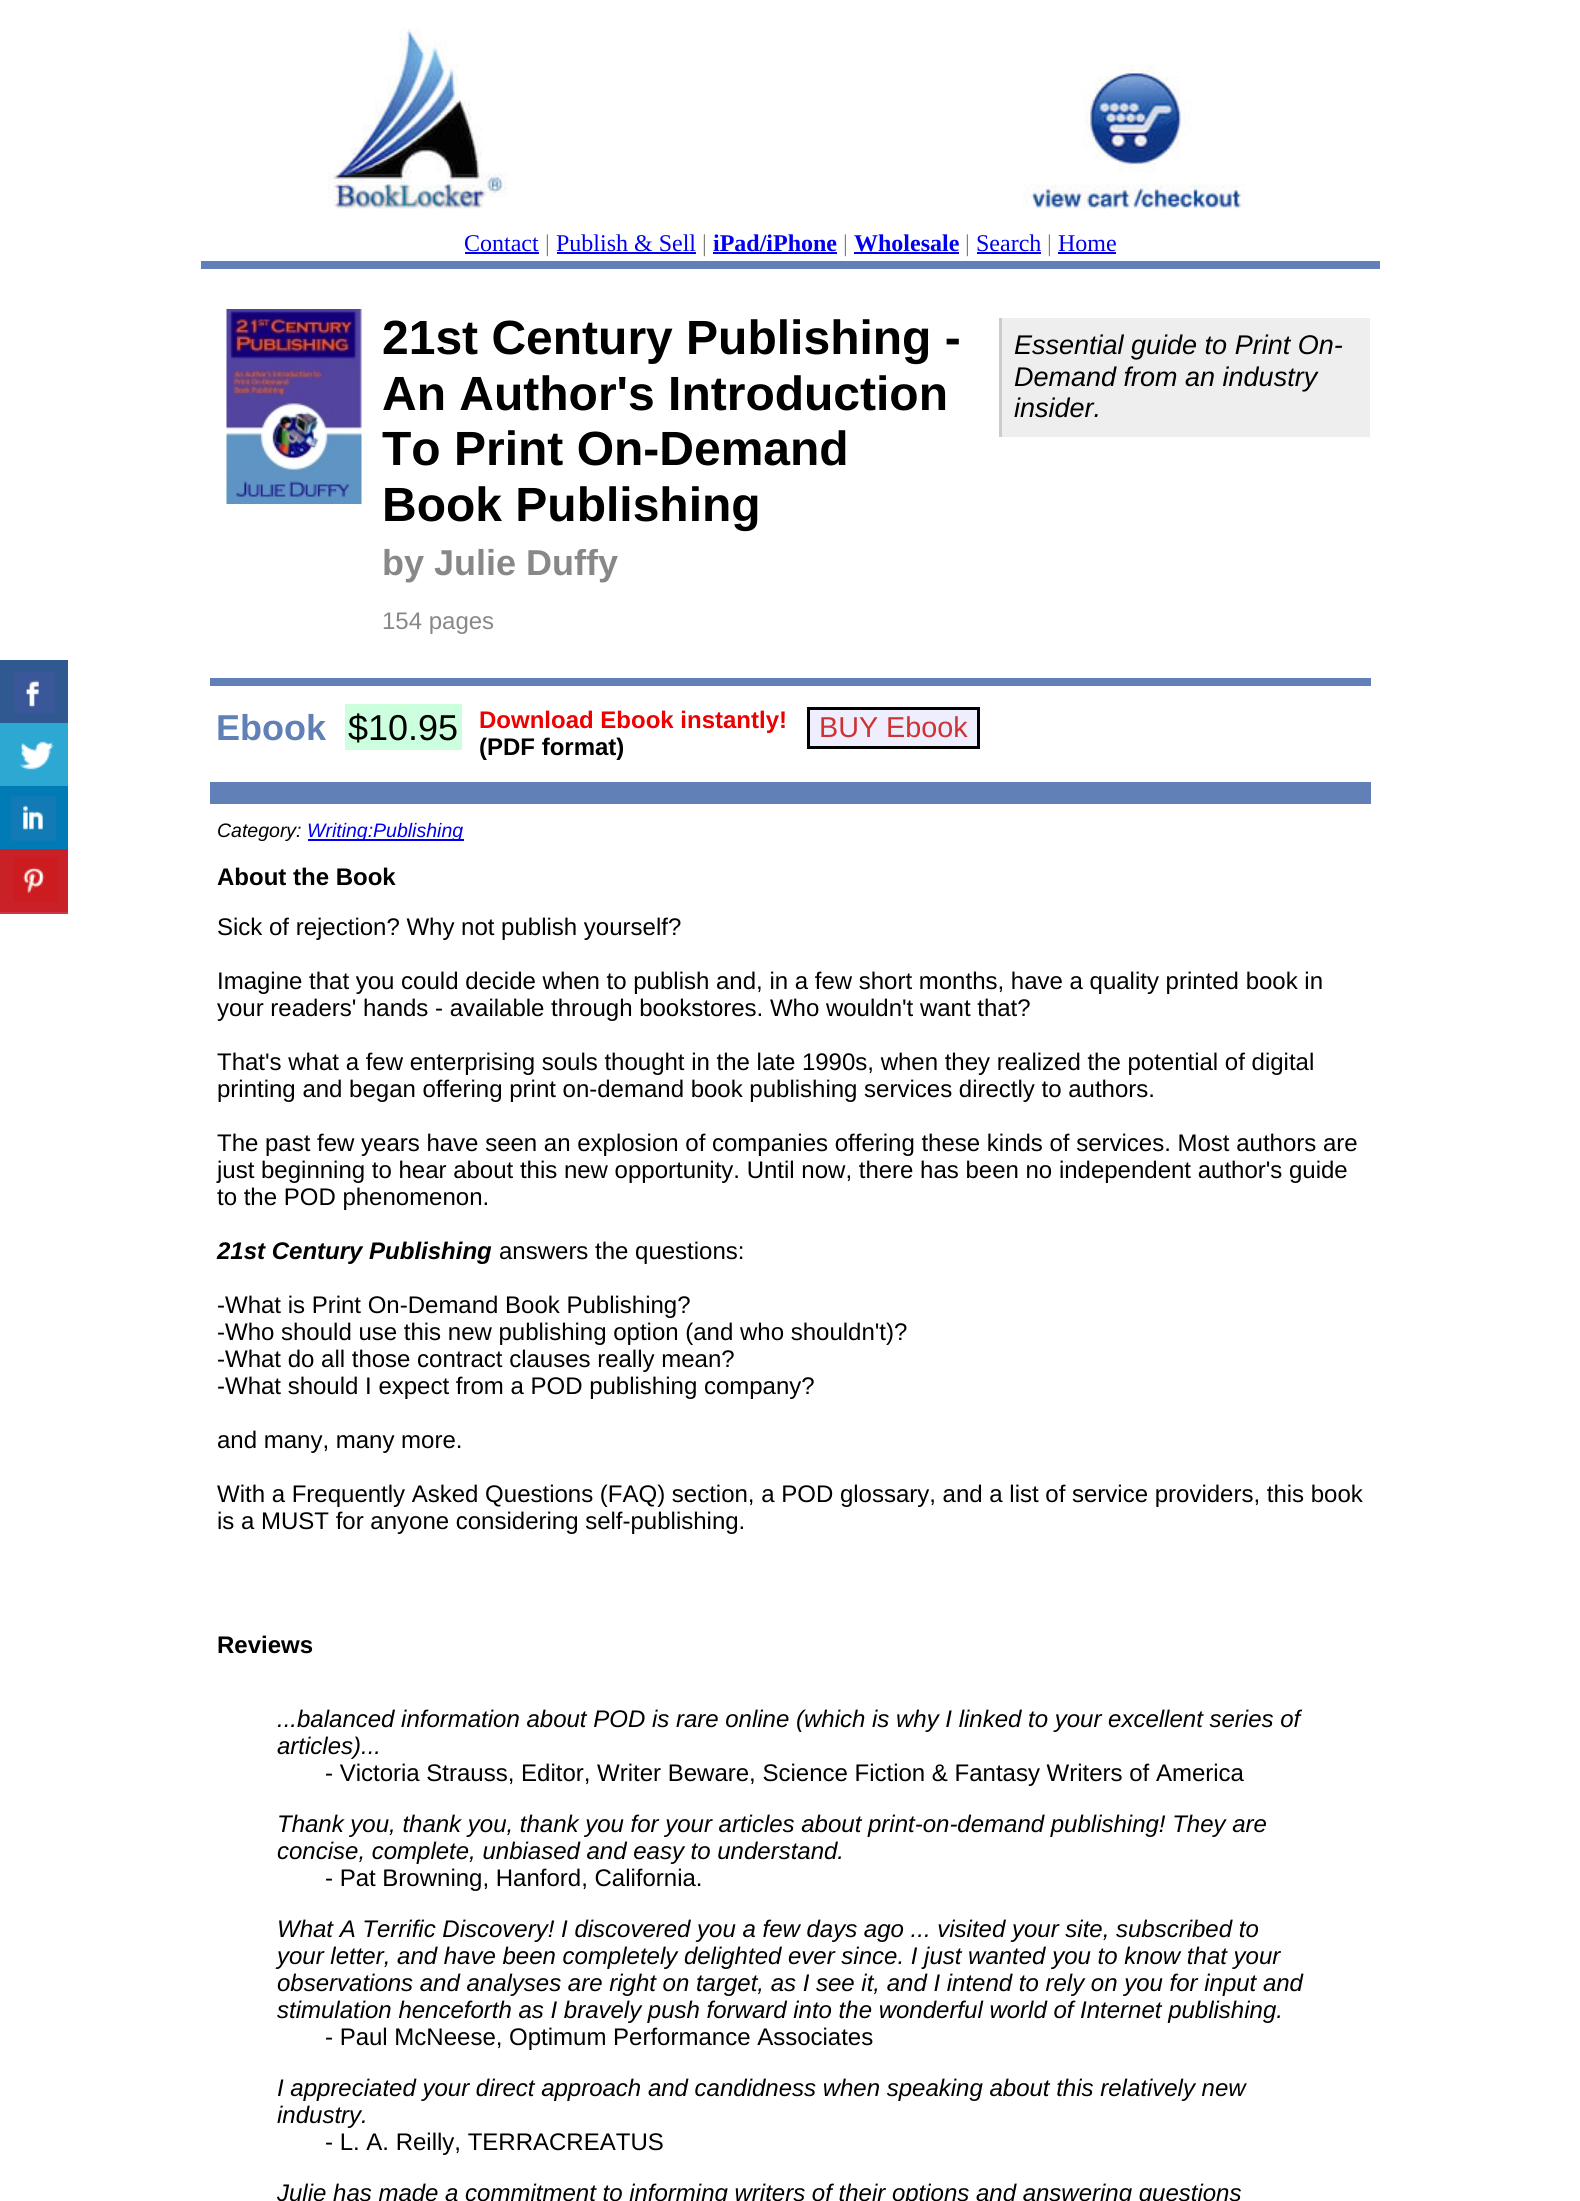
import math
import cairo


def use_color(cr, r, g, b):
  cr.set_source_rgb(r / 255, g / 255, b / 255)

def text(cr, x, y, s, family, size, color, bold=False, italic=False):
  cr.select_font_face(family, cairo.FONT_SLANT_ITALIC if italic else cairo.FONT_SLANT_NORMAL, cairo.FONT_WEIGHT_BOLD if bold else cairo.FONT_WEIGHT_NORMAL)
  cr.set_font_size(size)
  use_color(cr, *color)
  cr.move_to(x, y)
  cr.show_text(s)

def box(cr, x, y, w, h, *color):
  use_color(cr, *color)
  cr.rectangle(x, y, w, h)
  cr.fill()

def picture(cr, path, x, y, w, h):
  cr.save()
  cr.set_source_surface(cairo.ImageSurface.create_from_png(path), x, y)
  cr.rectangle(x, y, w, h)
  cr.fill()
  cr.restore()

def draw(cr):
  use_color(cr, 255, 255, 255)
  cr.paint()
  box(cr, 0, 660, 68, 63, 48, 88, 145)
  picture(cr, "img_01.png", 13, 672, 42, 42)
  box(cr, 0, 723, 68, 63, 44, 168, 210)
  picture(cr, "img_02.png", 20, 741, 34, 29)
  box(cr, 0, 786, 68, 63, 0, 123, 182)
  picture(cr, "img_03.png", 11, 796, 46, 45)
  box(cr, 0, 849, 68, 63, 202, 32, 39)
  box(cr, 0, 912, 68, 2, 207, 54, 61)
  picture(cr, "img_04.png", 13, 857, 45, 45)
  picture(cr, "img_05.png", 327, 28, 918, 181)
  box(cr, 465, 252, 74, 2, 0, 0, 238)
  box(cr, 557, 252, 139, 2, 0, 0, 238)
  box(cr, 713, 252, 124, 2, 0, 0, 238)
  box(cr, 854, 252, 105, 2, 0, 0, 238)
  box(cr, 977, 252, 64, 2, 0, 0, 238)
  box(cr, 1058, 252, 58, 2, 0, 0, 238)
  box(cr, 201, 261, 1179, 8, 96, 128, 183)
  picture(cr, "img_06.png", 226, 309, 136, 195)
  box(cr, 1002, 318, 368, 119, 238, 238, 238)
  box(cr, 999, 318, 3, 119, 204, 204, 204)
  box(cr, 210, 678, 1161, 8, 96, 128, 183)
  box(cr, 345, 704, 117, 46, 204, 255, 221)
  use_color(cr, 238, 238, 255)
  cr.rectangle(808.5, 708.5, 170, 39)
  cr.fill_preserve()
  use_color(cr, 0, 0, 0)
  cr.set_line_width(3)
  cr.stroke()
  box(cr, 210, 782, 1161, 22, 96, 128, 183)
  box(cr, 308, 839, 156, 2, 0, 0, 238)
  text(cr, 464, 251, "Contact", "Liberation Serif", 24, (0, 0, 238))
  text(cr, 545, 251, "|", "Liberation Serif", 24, (128, 128, 128))
  text(cr, 556, 251, "Publish & Sell", "Liberation Serif", 24, (0, 0, 238))
  text(cr, 702, 251, "|", "Liberation Serif", 24, (128, 128, 128))
  text(cr, 713, 251, "iPad/iPhone", "Liberation Serif", 24, (0, 0, 238), bold=True)
  text(cr, 843, 251, "|", "Liberation Serif", 24, (128, 128, 128))
  text(cr, 854, 251, "Wholesale", "Liberation Serif", 24, (0, 0, 238), bold=True)
  text(cr, 965, 251, "|", "Liberation Serif", 24, (128, 128, 128))
  text(cr, 976, 251, "Search", "Liberation Serif", 24, (0, 0, 238))
  text(cr, 1047, 251, "|", "Liberation Serif", 24, (128, 128, 128))
  text(cr, 1058, 251, "Home", "Liberation Serif", 24, (0, 0, 238))
  text(cr, 382, 354, "21st Century Publishing -", "Liberation Sans", 48, (0, 0, 0), bold=True)
  text(cr, 382, 410, "An Author's Introduction", "Liberation Sans", 48, (0, 0, 0), bold=True)
  text(cr, 382, 465, "To Print On-Demand", "Liberation Sans", 48, (0, 0, 0), bold=True)
  text(cr, 382, 521, "Book Publishing", "Liberation Sans", 48, (0, 0, 0), bold=True)
  text(cr, 382, 575, "by Julie Duffy", "Liberation Sans", 36, (136, 136, 136), bold=True)
  text(cr, 382, 629, "154 pages", "Liberation Sans", 24, (136, 136, 136))
  text(cr, 1014, 354, "Essential guide to Print On-", "Liberation Sans", 27, (0, 0, 0), italic=True)
  text(cr, 1014, 386, "Demand from an industry", "Liberation Sans", 27, (0, 0, 0), italic=True)
  text(cr, 1014, 417, "insider.", "Liberation Sans", 27, (0, 0, 0), italic=True)
  text(cr, 216, 740, "Ebook", "Liberation Sans", 36, (96, 128, 183), bold=True)
  text(cr, 348, 740, "$10.95", "Liberation Sans", 36, (0, 0, 0))
  text(cr, 479, 728, "Download Ebook instantly!", "Liberation Sans", 24, (238, 0, 0), bold=True)
  text(cr, 479, 755, "(PDF format)", "Liberation Sans", 24, (0, 0, 0), bold=True)
  text(cr, 819, 737, "BUY Ebook", "Liberation Sans", 28.75, (204, 51, 51))
  text(cr, 217, 837, "Category:", "Liberation Sans", 19.5, (0, 0, 0), italic=True)
  text(cr, 307, 837, "Writing:Publishing", "Liberation Sans", 19.5, (0, 0, 238), italic=True)
  text(cr, 217, 885, "About the Book", "Liberation Sans", 24, (0, 0, 0), bold=True)
  text(cr, 217, 935, "Sick of rejection? Why not publish yourself?", "Liberation Sans", 24, (0, 0, 0))
  text(cr, 217, 989, "Imagine that you could decide when to publish and, in a few short months, have a quality printed book in", "Liberation Sans", 24, (0, 0, 0))
  text(cr, 217, 1016, "your readers' hands - available through bookstores. Who wouldn't want that?", "Liberation Sans", 24, (0, 0, 0))
  text(cr, 217, 1070, "That's what a few enterprising souls thought in the late 1990s, when they realized the potential of digital", "Liberation Sans", 24, (0, 0, 0))
  text(cr, 217, 1097, "printing and began offering print on-demand book publishing services directly to authors.", "Liberation Sans", 24, (0, 0, 0))
  text(cr, 217, 1151, "The past few years have seen an explosion of companies offering these kinds of services. Most authors are", "Liberation Sans", 24, (0, 0, 0))
  text(cr, 217, 1178, "just beginning to hear about this new opportunity. Until now, there has been no independent author's guide", "Liberation Sans", 24, (0, 0, 0))
  text(cr, 217, 1205, "to the POD phenomenon.", "Liberation Sans", 24, (0, 0, 0))
  text(cr, 217, 1259, "21st Century Publishing", "Liberation Sans", 24, (0, 0, 0), bold=True, italic=True)
  text(cr, 499, 1259, "answers the questions:", "Liberation Sans", 24, (0, 0, 0))
  text(cr, 217, 1313, "-What is Print On-Demand Book Publishing?", "Liberation Sans", 24, (0, 0, 0))
  text(cr, 217, 1340, "-Who should use this new publishing option (and who shouldn't)?", "Liberation Sans", 24, (0, 0, 0))
  text(cr, 217, 1367, "-What do all those contract clauses really mean?", "Liberation Sans", 24, (0, 0, 0))
  text(cr, 217, 1394, "-What should I expect from a POD publishing company?", "Liberation Sans", 24, (0, 0, 0))
  text(cr, 217, 1448, "and many, many more.", "Liberation Sans", 24, (0, 0, 0))
  text(cr, 217, 1502, "With a Frequently Asked Questions (FAQ) section, a POD glossary, and a list of service providers, this book", "Liberation Sans", 24, (0, 0, 0))
  text(cr, 217, 1529, "is a MUST for anyone considering self-publishing.", "Liberation Sans", 24, (0, 0, 0))
  text(cr, 217, 1653, "Reviews", "Liberation Sans", 24, (0, 0, 0), bold=True)
  text(cr, 277, 1727, "...balanced information about POD is rare online (which is why I linked to your excellent series of", "Liberation Sans", 24, (0, 0, 0), italic=True)
  text(cr, 277, 1754, "articles)...", "Liberation Sans", 24, (0, 0, 0), italic=True)
  text(cr, 325, 1781, "- Victoria Strauss, Editor, Writer Beware, Science Fiction & Fantasy Writers of America", "Liberation Sans", 24, (0, 0, 0))
  text(cr, 277, 1832, "Thank you, thank you, thank you for your articles about print-on-demand publishing! They are", "Liberation Sans", 24, (0, 0, 0), italic=True)
  text(cr, 277, 1859, "concise, complete, unbiased and easy to understand.", "Liberation Sans", 24, (0, 0, 0), italic=True)
  text(cr, 325, 1886, "- Pat Browning, Hanford, California.", "Liberation Sans", 24, (0, 0, 0))
  text(cr, 277, 1937, "What A Terrific Discovery! I discovered you a few days ago ... visited your site, subscribed to", "Liberation Sans", 24, (0, 0, 0), italic=True)
  text(cr, 277, 1964, "your letter, and have been completely delighted ever since. I just wanted you to know that your", "Liberation Sans", 24, (0, 0, 0), italic=True)
  text(cr, 277, 1991, "observations and analyses are right on target, as I see it, and I intend to rely on you for input and", "Liberation Sans", 24, (0, 0, 0), italic=True)
  text(cr, 277, 2018, "stimulation henceforth as I bravely push forward into the wonderful world of Internet publishing.", "Liberation Sans", 24, (0, 0, 0), italic=True)
  text(cr, 325, 2045, "- Paul McNeese, Optimum Performance Associates", "Liberation Sans", 24, (0, 0, 0))
  text(cr, 277, 2096, "I appreciated your direct approach and candidness when speaking about this relatively new", "Liberation Sans", 24, (0, 0, 0), italic=True)
  text(cr, 277, 2123, "industry.", "Liberation Sans", 24, (0, 0, 0), italic=True)
  text(cr, 325, 2150, "- L. A. Reilly, TERRACREATUS", "Liberation Sans", 24, (0, 0, 0))
  text(cr, 277, 2201, "Julie has made a commitment to informing writers of their options and answering questions", "Liberation Sans", 24, (0, 0, 0), italic=True)


surface = cairo.ImageSurface(cairo.FORMAT_RGB24, 1580, 2201)
cr = cairo.Context(surface)
options = cairo.FontOptions()
options.set_hint_metrics(cairo.HINT_METRICS_OFF)
options.set_hint_style(cairo.HINT_STYLE_NONE)
cr.set_font_options(options)
cr.set_miter_limit(4)
draw(cr)
surface.write_to_png("out.png")
